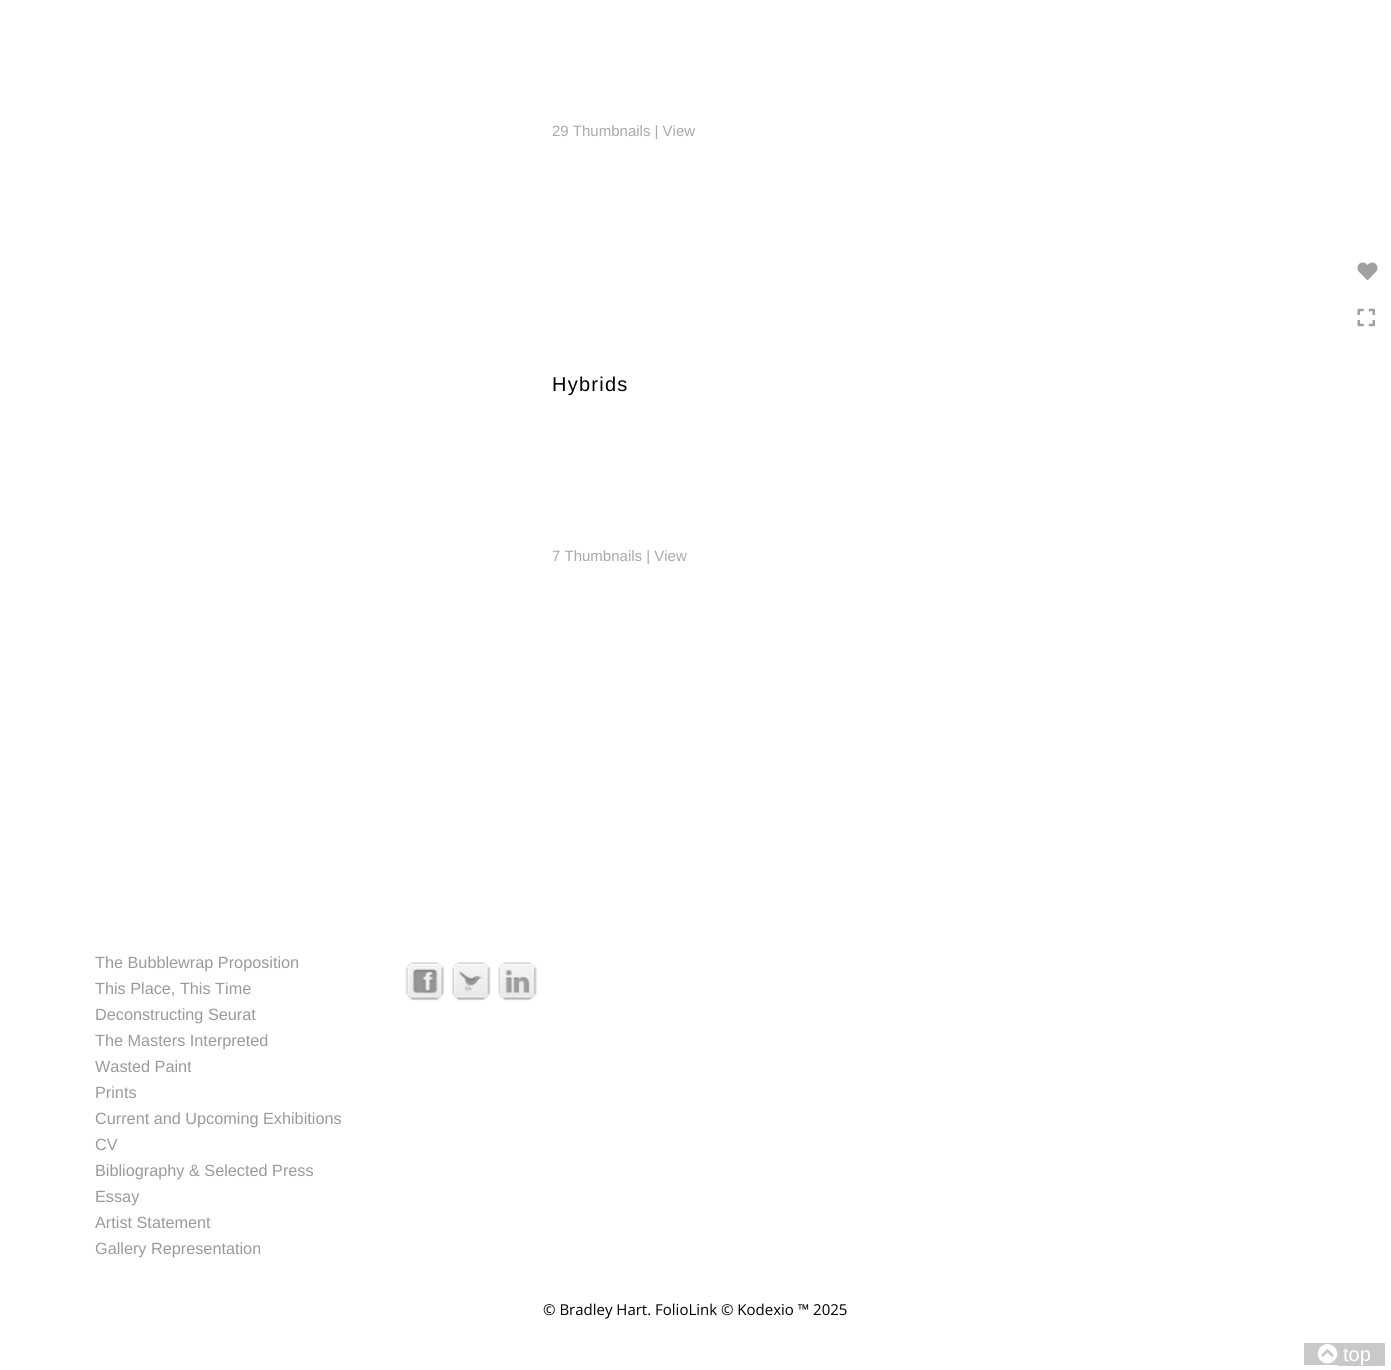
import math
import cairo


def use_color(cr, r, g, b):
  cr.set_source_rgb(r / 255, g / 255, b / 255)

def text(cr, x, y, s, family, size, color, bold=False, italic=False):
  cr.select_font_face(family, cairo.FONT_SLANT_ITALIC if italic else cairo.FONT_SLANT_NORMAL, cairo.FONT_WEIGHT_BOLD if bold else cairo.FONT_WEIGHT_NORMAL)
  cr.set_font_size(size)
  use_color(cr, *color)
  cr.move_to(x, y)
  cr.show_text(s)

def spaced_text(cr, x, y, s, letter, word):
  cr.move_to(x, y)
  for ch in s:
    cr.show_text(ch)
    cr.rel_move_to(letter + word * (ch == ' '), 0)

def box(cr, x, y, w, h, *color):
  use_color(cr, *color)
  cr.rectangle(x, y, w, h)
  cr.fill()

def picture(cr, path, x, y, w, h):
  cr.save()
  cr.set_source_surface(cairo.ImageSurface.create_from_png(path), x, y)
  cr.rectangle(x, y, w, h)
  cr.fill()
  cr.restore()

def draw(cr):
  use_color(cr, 255, 255, 255)
  cr.paint()
  picture(cr, "img_01.png", 1357, 262, 21, 18)
  picture(cr, "img_02.png", 1357, 308, 18, 19)
  picture(cr, "img_03.png", 405, 962, 39, 39)
  picture(cr, "img_04.png", 452, 962, 39, 39)
  picture(cr, "img_05.png", 498, 962, 39, 39)
  box(cr, 1304, 1343, 34, 22, 201, 201, 201)
  box(cr, 1338, 1343, 47, 23, 201, 201, 201)
  picture(cr, "img_06.png", 1317, 1344, 21, 20)
  text(cr, 552, 136, "29 Thumbnails | View", "Liberation Sans", 15, (169, 169, 169))
  cr.set_font_size(20)
  use_color(cr, 0, 0, 0)
  spaced_text(cr, 552, 391, "Hybrids", 1.25, 0)
  text(cr, 552, 561, "7 Thumbnails | View", "Liberation Sans", 15, (169, 169, 169))
  text(cr, 95, 968, "The Bubblewrap Proposition", "Liberation Sans", 16.25, (154, 154, 154))
  text(cr, 95, 994, "This Place, This Time", "Liberation Sans", 16.25, (154, 154, 154))
  text(cr, 95, 1020, "Deconstructing Seurat", "Liberation Sans", 16.25, (154, 154, 154))
  text(cr, 95, 1046, "The Masters Interpreted", "Liberation Sans", 16.25, (154, 154, 154))
  cr.save()
  cr.rectangle(95, 1056, 96, 23)
  cr.clip()
  text(cr, 95, 1072, "Wasted Paint", "Liberation Sans", 16.25, (154, 154, 154))
  cr.restore()
  text(cr, 95, 1098, "Prints", "Liberation Sans", 16.25, (154, 154, 154))
  text(cr, 95, 1124, "Current and Upcoming Exhibitions", "Liberation Sans", 16.25, (154, 154, 154))
  text(cr, 95, 1150, "CV", "Liberation Sans", 16.25, (154, 154, 154))
  text(cr, 95, 1176, "Bibliography & Selected Press", "Liberation Sans", 16.25, (154, 154, 154))
  text(cr, 95, 1202, "Essay", "Liberation Sans", 16.25, (154, 154, 154))
  text(cr, 95, 1228, "Artist Statement", "Liberation Sans", 16.25, (154, 154, 154))
  text(cr, 95, 1254, "Gallery Representation", "Liberation Sans", 16.25, (154, 154, 154))
  text(cr, 543, 1315, "© Bradley Hart. FolioLink © Kodexio ™ 2025", "Open Sans", 15, (0, 0, 0))
  text(cr, 1343, 1361, "top", "Liberation Sans", 20, (255, 255, 255))


surface = cairo.ImageSurface(cairo.FORMAT_RGB24, 1391, 1370)
cr = cairo.Context(surface)
options = cairo.FontOptions()
options.set_hint_metrics(cairo.HINT_METRICS_OFF)
options.set_hint_style(cairo.HINT_STYLE_NONE)
cr.set_font_options(options)
cr.set_miter_limit(4)
draw(cr)
surface.write_to_png("out.png")
